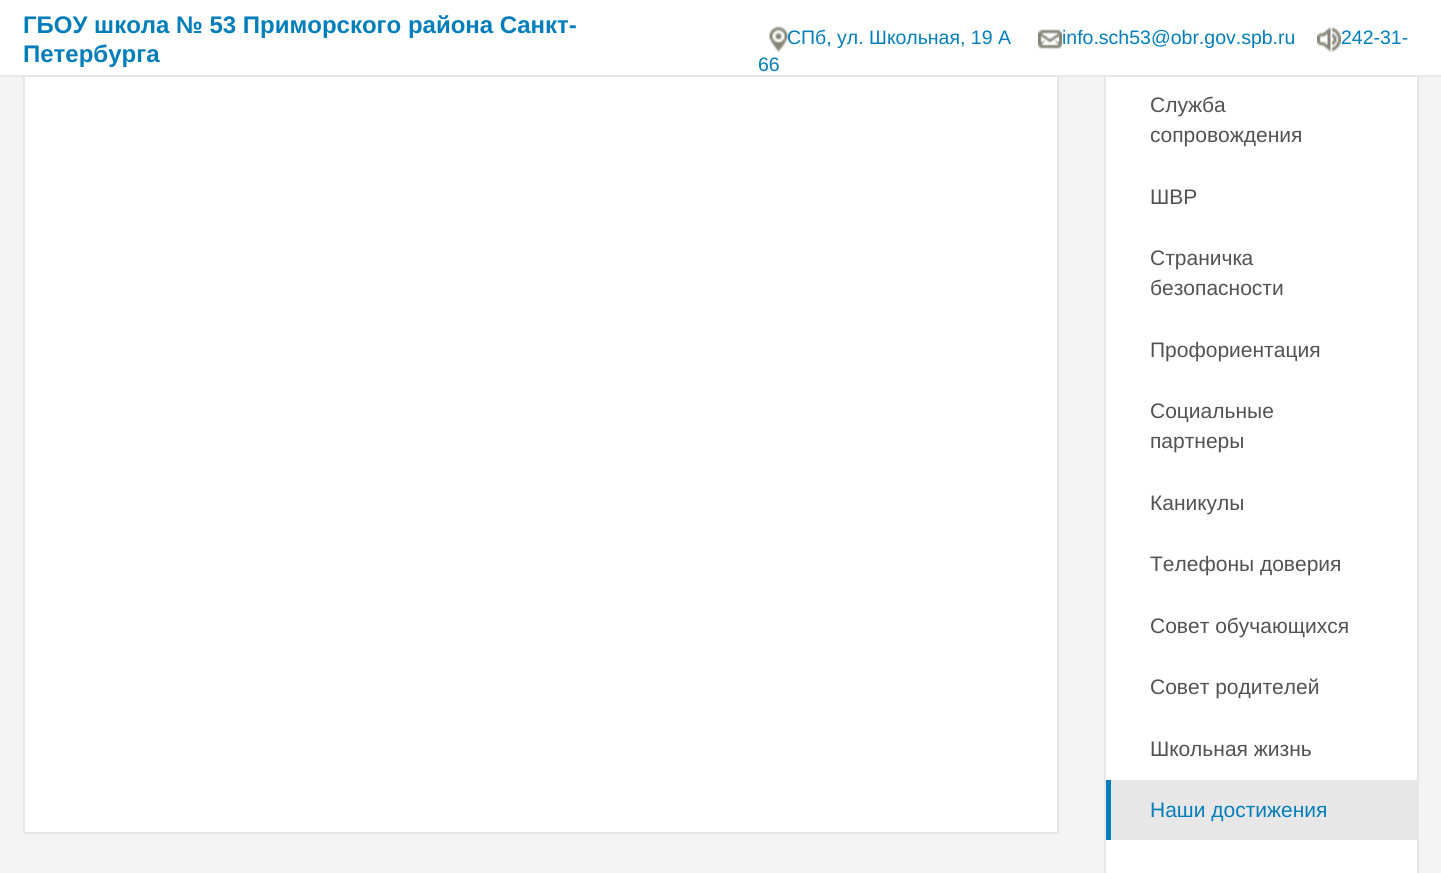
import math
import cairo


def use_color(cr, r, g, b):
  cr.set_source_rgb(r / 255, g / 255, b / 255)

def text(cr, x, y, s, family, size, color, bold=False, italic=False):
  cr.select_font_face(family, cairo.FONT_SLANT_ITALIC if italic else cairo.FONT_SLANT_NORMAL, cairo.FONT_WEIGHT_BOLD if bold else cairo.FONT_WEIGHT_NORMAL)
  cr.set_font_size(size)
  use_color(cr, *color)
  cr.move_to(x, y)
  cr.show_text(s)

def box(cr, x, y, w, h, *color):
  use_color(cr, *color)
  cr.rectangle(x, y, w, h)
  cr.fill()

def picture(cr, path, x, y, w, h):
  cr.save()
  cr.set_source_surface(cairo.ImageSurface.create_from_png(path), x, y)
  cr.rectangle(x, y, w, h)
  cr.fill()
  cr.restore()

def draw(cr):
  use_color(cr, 244, 244, 244)
  cr.paint()
  box(cr, 25, 77, 1032, 755, 255, 255, 255)
  cr.rectangle(24, -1, 1034, 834)
  use_color(cr, 231, 231, 231)
  cr.stroke()
  box(cr, 1106, 77, 311, 796, 255, 255, 255)
  cr.rectangle(1105, -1, 313, 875)
  use_color(cr, 231, 231, 231)
  cr.stroke()
  box(cr, 0, 0, 1441, 75, 255, 255, 255)
  box(cr, 0, 75, 1441, 2, 231, 231, 231)
  picture(cr, "img_01.png", 769, 26, 19, 26)
  picture(cr, "img_02.png", 1038, 29, 24, 20)
  picture(cr, "img_03.png", 1317, 26, 24, 26)
  box(cr, 1111, 780, 306, 60, 231, 231, 231)
  box(cr, 1106, 780, 5, 60, 1, 126, 186)
  text(cr, 23, 33, "ГБОУ школа № 53 Приморского района Санкт-", "Liberation Sans", 24, (1, 126, 186), bold=True)
  text(cr, 23, 62, "Петербурга", "Liberation Sans", 24, (1, 126, 186), bold=True)
  text(cr, 787, 44, "СПб, ул. Школьная, 19 А", "Liberation Sans", 19.5, (1, 126, 186))
  text(cr, 1062, 44, "info.sch53@obr.gov.spb.ru", "Liberation Sans", 19.5, (1, 126, 186))
  text(cr, 1341, 44, "242-31-", "Liberation Sans", 19.5, (1, 126, 186))
  text(cr, 758, 71, "66", "Liberation Sans", 19.5, (1, 126, 186))
  text(cr, 1150, 112, "Служба", "Liberation Sans", 21, (82, 82, 82))
  text(cr, 1150, 142, "сопровождения", "Liberation Sans", 21, (82, 82, 82))
  text(cr, 1150, 204, "ШВР", "Liberation Sans", 21, (82, 82, 82))
  text(cr, 1150, 265, "Страничка", "Liberation Sans", 21, (82, 82, 82))
  text(cr, 1150, 295, "безопасности", "Liberation Sans", 21, (82, 82, 82))
  text(cr, 1150, 357, "Профориентация", "Liberation Sans", 21, (82, 82, 82))
  text(cr, 1150, 418, "Социальные", "Liberation Sans", 21, (82, 82, 82))
  text(cr, 1150, 448, "партнеры", "Liberation Sans", 21, (82, 82, 82))
  text(cr, 1150, 510, "Каникулы", "Liberation Sans", 21, (82, 82, 82))
  text(cr, 1150, 571, "Телефоны доверия", "Liberation Sans", 21, (82, 82, 82))
  text(cr, 1150, 633, "Совет обучающихся", "Liberation Sans", 21, (82, 82, 82))
  text(cr, 1150, 694, "Совет родителей", "Liberation Sans", 21, (82, 82, 82))
  text(cr, 1150, 756, "Школьная жизнь", "Liberation Sans", 21, (82, 82, 82))
  text(cr, 1150, 817, "Наши достижения", "Liberation Sans", 21, (1, 126, 186))


surface = cairo.ImageSurface(cairo.FORMAT_RGB24, 1441, 873)
cr = cairo.Context(surface)
options = cairo.FontOptions()
options.set_hint_metrics(cairo.HINT_METRICS_OFF)
options.set_hint_style(cairo.HINT_STYLE_NONE)
cr.set_font_options(options)
cr.set_miter_limit(4)
draw(cr)
surface.write_to_png("out.png")
